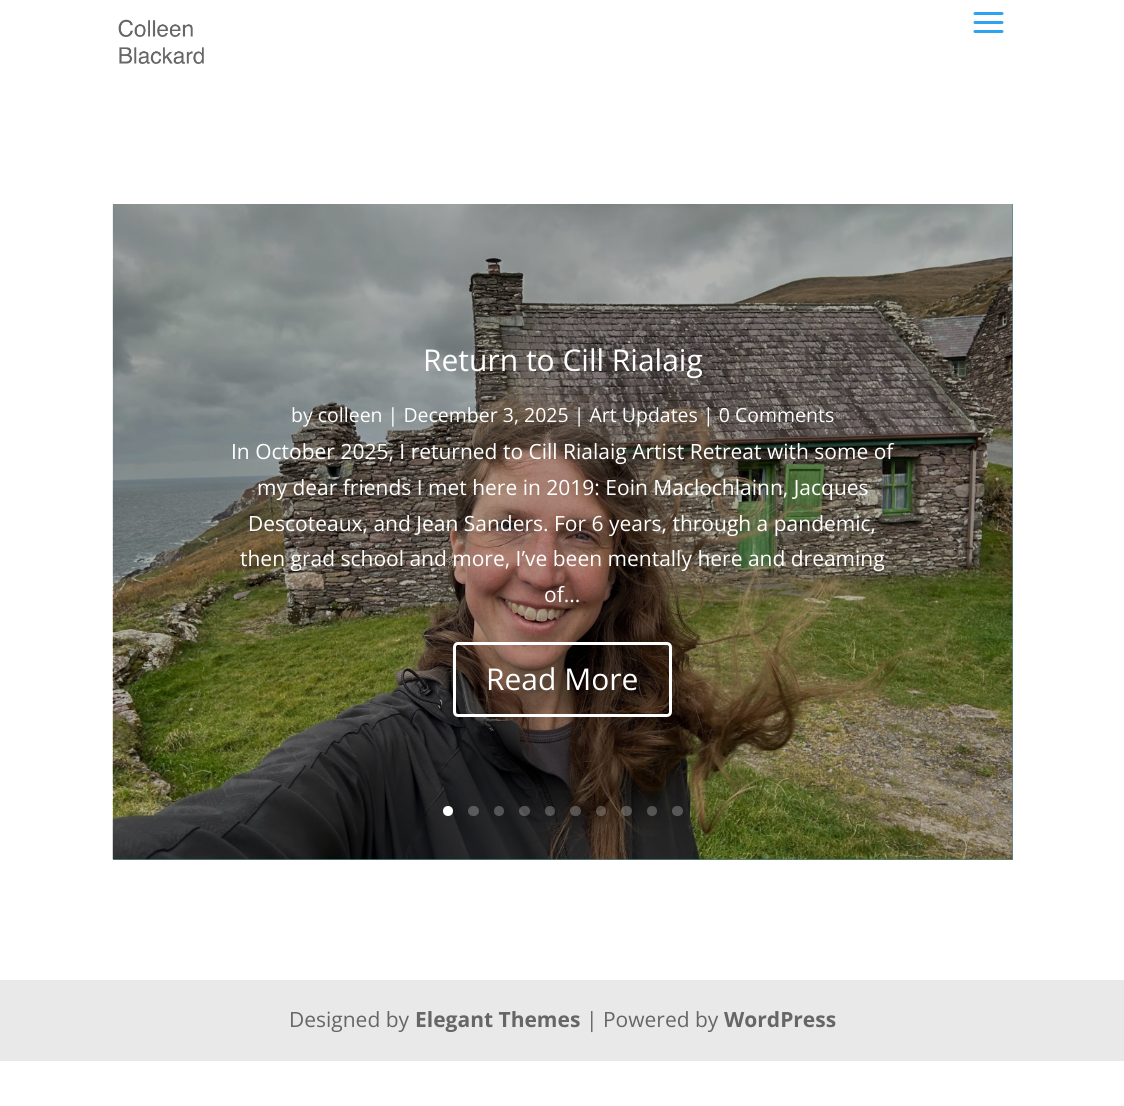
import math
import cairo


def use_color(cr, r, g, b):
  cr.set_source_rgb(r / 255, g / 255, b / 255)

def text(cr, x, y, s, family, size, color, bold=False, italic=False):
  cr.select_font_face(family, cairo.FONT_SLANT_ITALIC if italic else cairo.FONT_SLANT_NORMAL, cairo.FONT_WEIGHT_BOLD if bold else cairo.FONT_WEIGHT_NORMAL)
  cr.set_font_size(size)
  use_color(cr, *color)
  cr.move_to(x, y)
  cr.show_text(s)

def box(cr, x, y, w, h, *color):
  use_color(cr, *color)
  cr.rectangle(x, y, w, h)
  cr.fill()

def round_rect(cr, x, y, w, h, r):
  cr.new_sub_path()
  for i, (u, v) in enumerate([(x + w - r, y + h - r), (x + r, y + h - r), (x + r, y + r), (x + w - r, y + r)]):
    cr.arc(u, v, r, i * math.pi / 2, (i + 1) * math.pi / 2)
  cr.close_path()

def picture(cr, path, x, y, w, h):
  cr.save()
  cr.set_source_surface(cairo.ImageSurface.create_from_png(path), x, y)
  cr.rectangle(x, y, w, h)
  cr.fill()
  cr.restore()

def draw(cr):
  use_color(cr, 255, 255, 255)
  cr.paint()
  picture(cr, "img_01.png", 118, 19, 86, 45)
  picture(cr, "img_02.png", 973, 12, 31, 21)
  box(cr, 113, 204, 900, 656, 88, 133, 138)
  picture(cr, "img_03.png", 112, 204, 901, 656)
  round_rect(cr, 454.5, 643.5, 216, 72, 3.5)
  use_color(cr, 255, 255, 255)
  cr.set_line_width(3)
  cr.stroke()
  cr.arc(448, 811, 5, 0, 2 * math.pi)
  cr.fill()
  cr.set_source_rgba(1, 1, 1, 0.25)
  round_rect(cr, 468, 806, 11, 10, 5)
  cr.fill()
  cr.arc(499, 811, 5, 0, 2 * math.pi)
  cr.fill()
  round_rect(cr, 519, 806, 11, 10, 5)
  cr.fill()
  cr.arc(550, 811, 5, 0, 2 * math.pi)
  cr.fill()
  round_rect(cr, 570, 806, 11, 10, 5)
  cr.fill()
  cr.arc(601, 811, 5, 0, 2 * math.pi)
  cr.fill()
  round_rect(cr, 621, 806, 11, 10, 5)
  cr.fill()
  cr.arc(652, 811, 5, 0, 2 * math.pi)
  cr.fill()
  round_rect(cr, 672, 806, 11, 10, 5)
  cr.fill()
  box(cr, 0, 980, 1124, 81, 233, 233, 233)
  text(cr, 423, 371, "Return to Cill Rialaig", "Open Sans", 30, (255, 255, 255))
  text(cr, 291, 422, "by colleen | December 3, 2025 | Art Updates | 0 Comments", "Open Sans", 19.5, (255, 255, 255))
  text(cr, 231, 459, "In October 2025, I returned to Cill Rialaig Artist Retreat with some of", "Open Sans", 21, (255, 255, 255))
  text(cr, 257, 495, "my dear friends I met here in 2019: Eoin Maclochlainn, Jacques", "Open Sans", 21, (255, 255, 255))
  text(cr, 248, 531, "Descoteaux, and Jean Sanders. For 6 years, through a pandemic,", "Open Sans", 21, (255, 255, 255))
  text(cr, 240, 566, "then grad school and more, I’ve been mentally here and dreaming", "Open Sans", 21, (255, 255, 255))
  text(cr, 544, 602, "of...", "Open Sans", 21, (255, 255, 255))
  text(cr, 486, 690, "Read More", "Open Sans", 30, (255, 255, 255))
  text(cr, 289, 1027, "Designed by", "Open Sans", 21, (102, 102, 102))
  text(cr, 415, 1027, "Elegant Themes", "Open Sans", 21, (102, 102, 102), bold=True)
  text(cr, 586, 1027, "| Powered by", "Open Sans", 21, (102, 102, 102))
  text(cr, 724, 1027, "WordPress", "Open Sans", 21, (102, 102, 102), bold=True)


surface = cairo.ImageSurface(cairo.FORMAT_RGB24, 1124, 1106)
cr = cairo.Context(surface)
options = cairo.FontOptions()
options.set_hint_metrics(cairo.HINT_METRICS_OFF)
options.set_hint_style(cairo.HINT_STYLE_NONE)
cr.set_font_options(options)
cr.set_miter_limit(4)
draw(cr)
surface.write_to_png("out.png")
